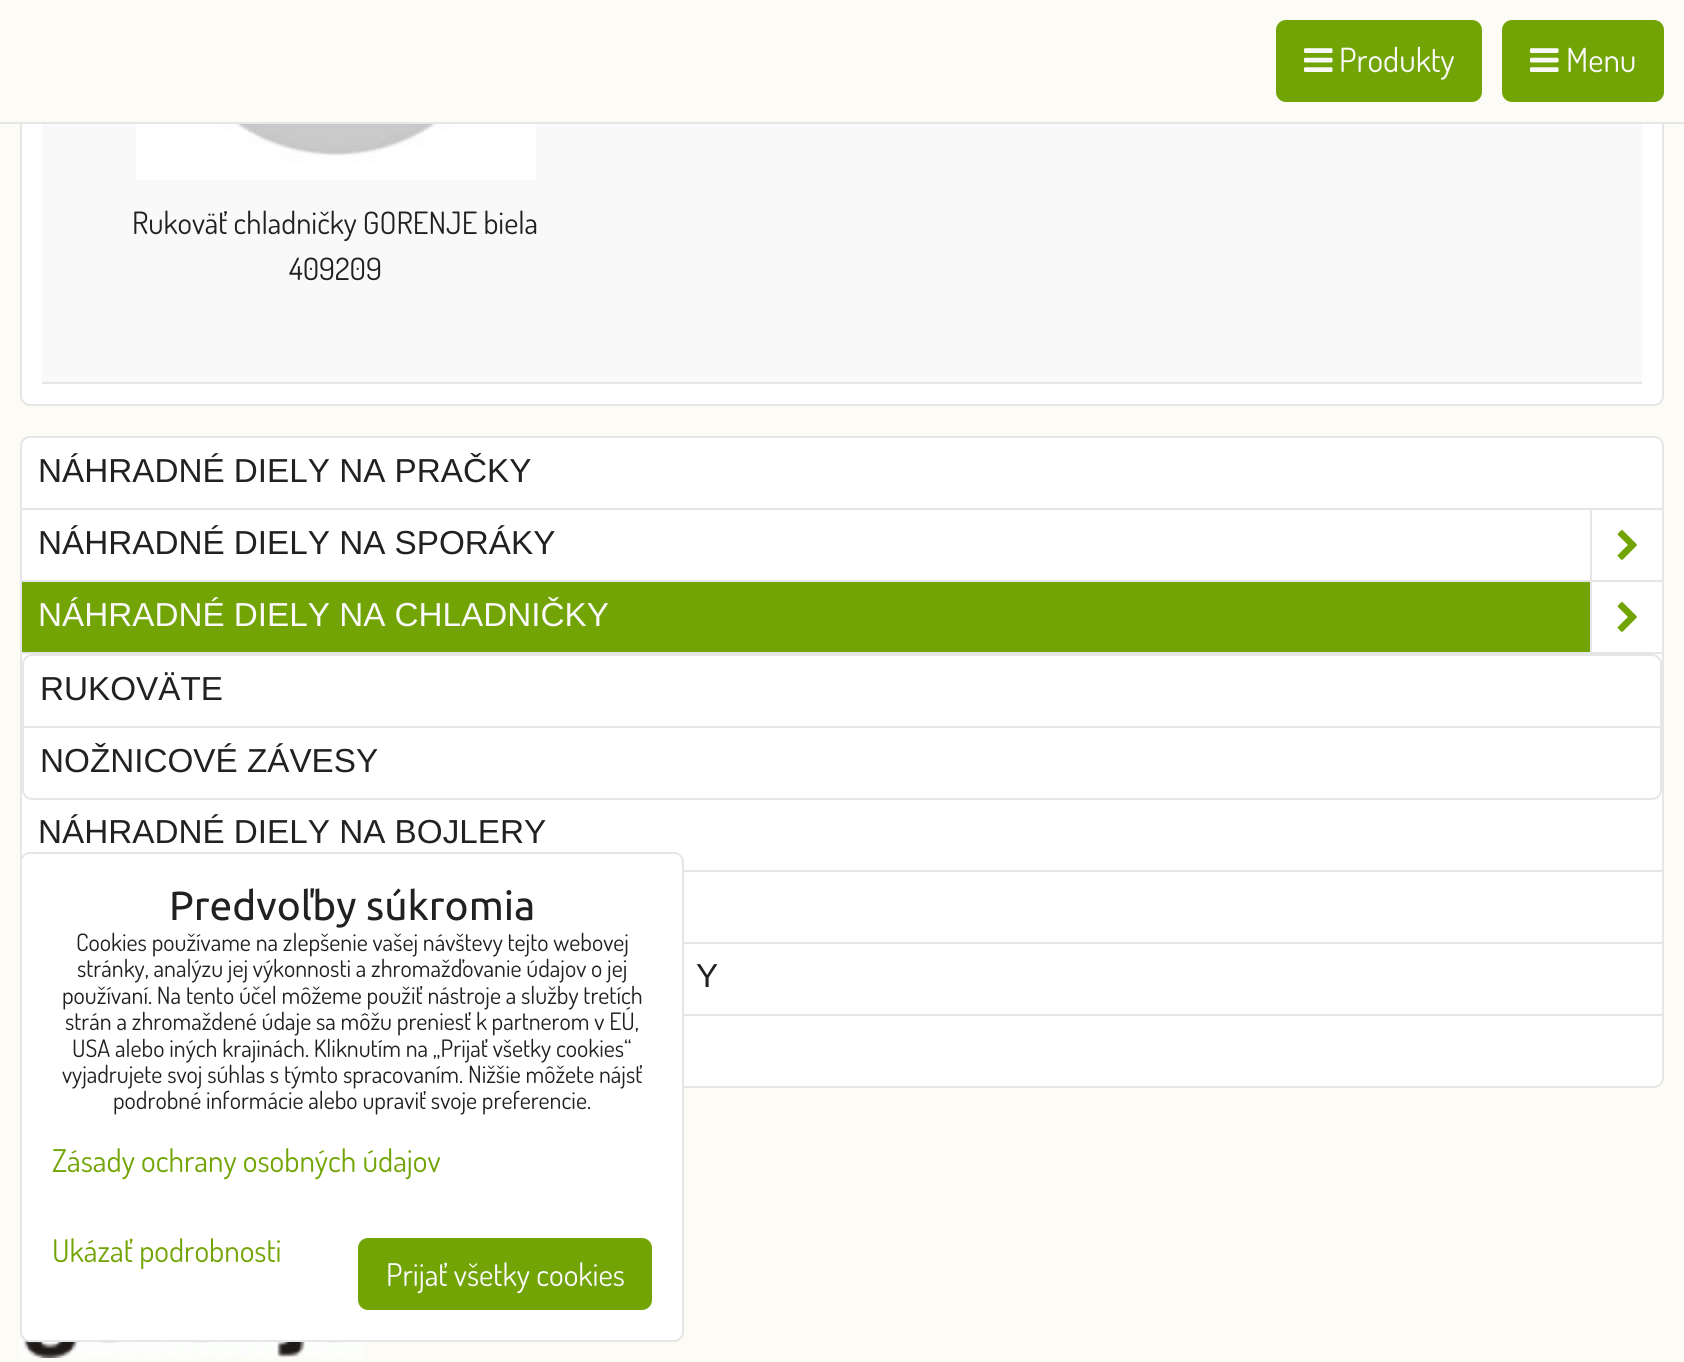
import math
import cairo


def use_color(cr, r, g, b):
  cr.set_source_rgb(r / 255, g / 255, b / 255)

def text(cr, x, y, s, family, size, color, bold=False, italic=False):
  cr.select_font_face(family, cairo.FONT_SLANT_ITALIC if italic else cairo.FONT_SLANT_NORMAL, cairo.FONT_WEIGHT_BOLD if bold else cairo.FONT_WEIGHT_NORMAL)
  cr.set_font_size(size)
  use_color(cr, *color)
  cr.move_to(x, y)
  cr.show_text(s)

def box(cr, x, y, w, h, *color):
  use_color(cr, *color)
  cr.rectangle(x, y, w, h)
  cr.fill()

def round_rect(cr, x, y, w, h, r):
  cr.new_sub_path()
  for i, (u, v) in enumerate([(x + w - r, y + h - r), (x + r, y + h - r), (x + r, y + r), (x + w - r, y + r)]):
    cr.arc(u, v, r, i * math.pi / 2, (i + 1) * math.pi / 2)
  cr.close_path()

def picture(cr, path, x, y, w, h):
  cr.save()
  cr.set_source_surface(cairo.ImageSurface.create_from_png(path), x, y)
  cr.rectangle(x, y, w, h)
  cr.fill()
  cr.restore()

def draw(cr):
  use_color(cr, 252, 251, 246)
  cr.paint()
  use_color(cr, 255, 255, 255)
  round_rect(cr, 21, -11, 1642, 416, 9)
  cr.fill_preserve()
  use_color(cr, 230, 230, 230)
  cr.stroke()
  box(cr, 20, 0, 1644, 122, 252, 251, 246)
  box(cr, 0, 122, 1684, 2, 230, 230, 230)
  use_color(cr, 114, 164, 5)
  round_rect(cr, 1277, 21, 204, 80, 9)
  cr.fill_preserve()
  cr.stroke()
  picture(cr, "img_01.png", 1304, 48, 29, 24)
  round_rect(cr, 1503, 21, 160, 80, 9)
  cr.fill_preserve()
  cr.stroke()
  picture(cr, "img_01.png", 1530, 48, 29, 24)
  box(cr, 42, 124, 1600, 258, 249, 249, 249)
  box(cr, 42, 382, 1600, 2, 230, 230, 230)
  picture(cr, "img_02.png", 136, 124, 400, 56)
  use_color(cr, 255, 255, 255)
  round_rect(cr, 21, 437, 1642, 650, 9)
  cr.fill_preserve()
  use_color(cr, 230, 230, 230)
  cr.stroke()
  box(cr, 22, 508, 1640, 2, 230, 230, 230)
  box(cr, 22, 580, 1640, 2, 230, 230, 230)
  box(cr, 1590, 510, 2, 70, 230, 230, 230)
  picture(cr, "img_03.png", 1617, 530, 20, 30)
  box(cr, 22, 582, 1568, 70, 114, 164, 5)
  box(cr, 22, 652, 1640, 2, 230, 230, 230)
  box(cr, 1590, 582, 2, 70, 230, 230, 230)
  picture(cr, "img_03.png", 1617, 602, 20, 30)
  round_rect(cr, 23, 655, 1638, 144, 9)
  cr.stroke()
  box(cr, 24, 726, 1636, 2, 230, 230, 230)
  box(cr, 684, 870, 978, 2, 230, 230, 230)
  box(cr, 684, 942, 978, 2, 230, 230, 230)
  box(cr, 684, 1014, 978, 2, 230, 230, 230)
  picture(cr, "img_04.png", 20, 1332, 344, 26)
  use_color(cr, 255, 255, 255)
  round_rect(cr, 21, 853, 662, 488, 9)
  cr.fill_preserve()
  use_color(cr, 230, 230, 230)
  cr.stroke()
  use_color(cr, 114, 164, 5)
  round_rect(cr, 359, 1239, 292, 70, 9)
  cr.fill_preserve()
  cr.stroke()
  text(cr, 1339, 72, "Produkty", "Dosis", 33.25, (249, 249, 249))
  text(cr, 1566, 72, "Menu", "Dosis", 33.25, (249, 249, 249))
  text(cr, 132, 234, "Rukoväť chladničky GORENJE biela", "Dosis", 30.75, (32, 33, 35))
  text(cr, 289, 280, "409209", "Dosis", 30.75, (32, 33, 35))
  text(cr, 38, 482, "NÁHRADNÉ DIELY NA PRAČKY", "Liberation Sans", 33.25, (32, 33, 35))
  text(cr, 38, 554, "NÁHRADNÉ DIELY NA SPORÁKY", "Liberation Sans", 33.25, (32, 33, 35))
  text(cr, 38, 626, "NÁHRADNÉ DIELY NA CHLADNIČKY", "Liberation Sans", 33.25, (249, 249, 249))
  text(cr, 40, 700, "RUKOVÄTE", "Liberation Sans", 33.25, (32, 33, 35))
  text(cr, 40, 772, "NOŽNICOVÉ ZÁVESY", "Liberation Sans", 33.25, (32, 33, 35))
  text(cr, 38, 843, "NÁHRADNÉ DIELY NA BOJLERY", "Liberation Sans", 33.25, (32, 33, 35))
  text(cr, 696, 987, "Y", "Liberation Sans", 33.25, (32, 33, 35))
  text(cr, 169, 920, "Predvoľby súkromia", "Ubuntu", 40.75, (32, 33, 35))
  text(cr, 76, 951, "Cookies používame na zlepšenie vašej návštevy tejto webovej", "Dosis", 24, (32, 33, 35))
  text(cr, 77, 977, "stránky, analýzu jej výkonnosti a zhromažďovanie údajov o jej", "Dosis", 24, (32, 33, 35))
  text(cr, 62, 1004, "používaní. Na tento účel môžeme použiť nástroje a služby tretích", "Dosis", 24, (32, 33, 35))
  text(cr, 65, 1030, "strán a zhromaždené údaje sa môžu preniesť k partnerom v EÚ,", "Dosis", 24, (32, 33, 35))
  text(cr, 72, 1057, "USA alebo iných krajinách. Kliknutím na „Prijať všetky cookies“", "Dosis", 24, (32, 33, 35))
  text(cr, 62, 1083, "vyjadrujete svoj súhlas s týmto spracovaním. Nižšie môžete nájsť", "Dosis", 24, (32, 33, 35))
  text(cr, 113, 1109, "podrobné informácie alebo upraviť svoje preferencie.", "Dosis", 24, (32, 33, 35))
  text(cr, 52, 1172, "Zásady ochrany osobných údajov", "Dosis", 31.25, (114, 164, 5))
  text(cr, 52, 1262, "Ukázať podrobnosti", "Dosis", 31.25, (114, 164, 5))
  text(cr, 386, 1286, "Prijať všetky cookies", "Dosis", 31.25, (249, 249, 249))


surface = cairo.ImageSurface(cairo.FORMAT_RGB24, 1684, 1362)
cr = cairo.Context(surface)
options = cairo.FontOptions()
options.set_hint_metrics(cairo.HINT_METRICS_OFF)
options.set_hint_style(cairo.HINT_STYLE_NONE)
cr.set_font_options(options)
cr.set_miter_limit(4)
draw(cr)
surface.write_to_png("out.png")
